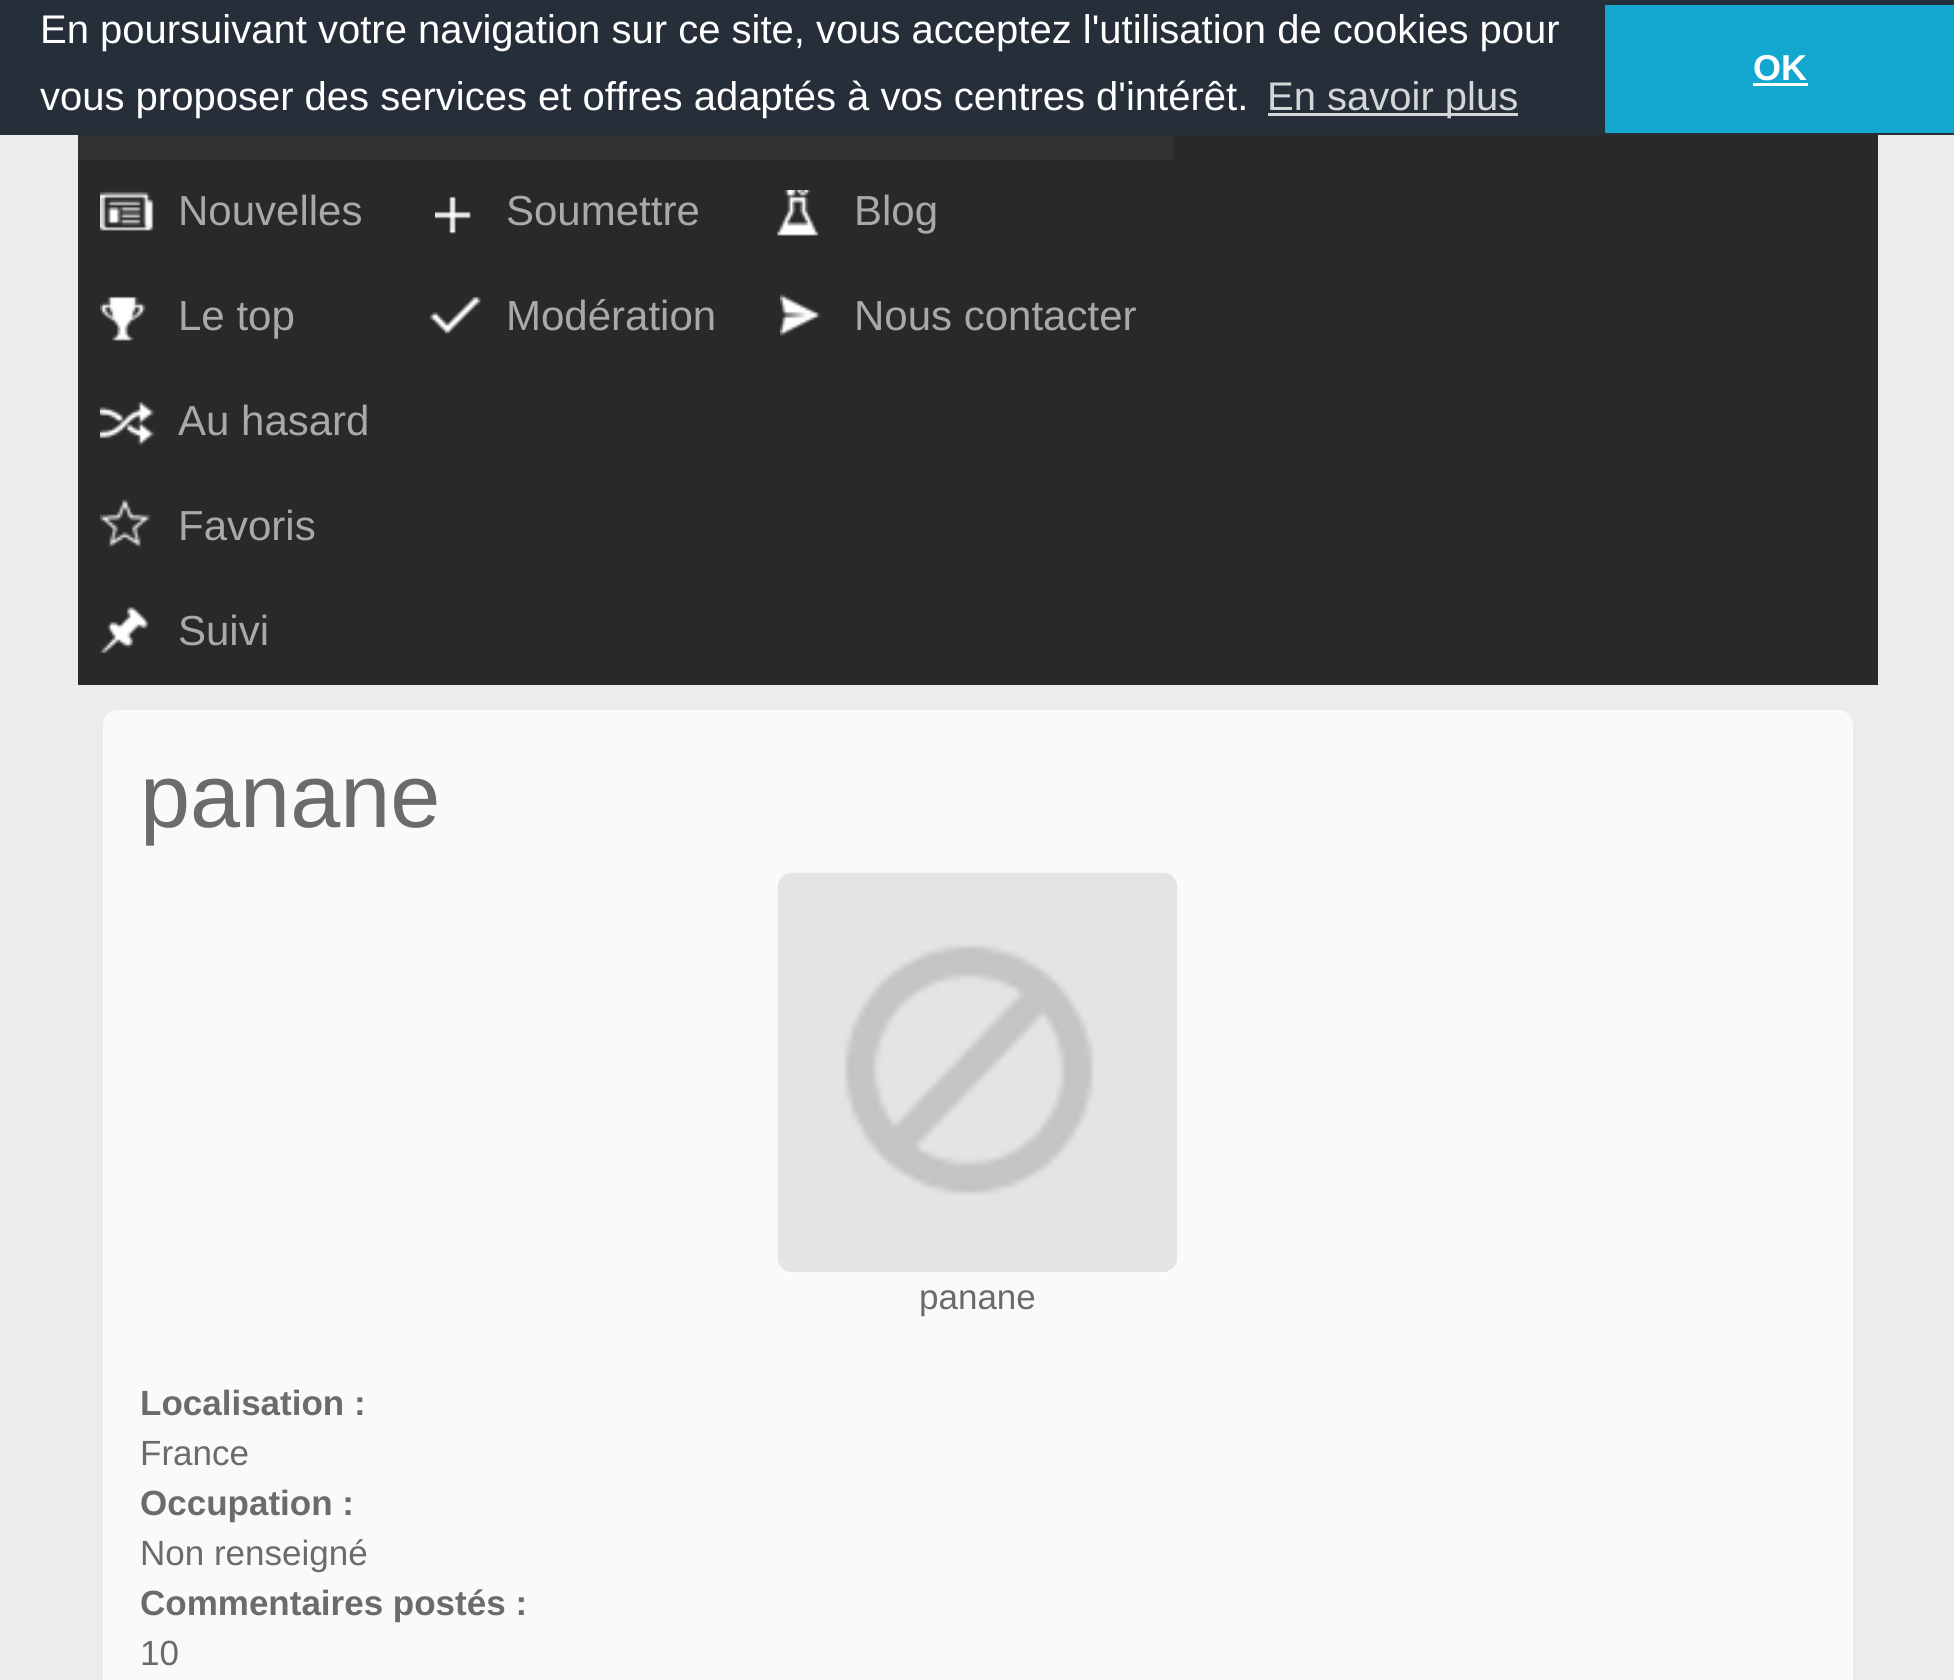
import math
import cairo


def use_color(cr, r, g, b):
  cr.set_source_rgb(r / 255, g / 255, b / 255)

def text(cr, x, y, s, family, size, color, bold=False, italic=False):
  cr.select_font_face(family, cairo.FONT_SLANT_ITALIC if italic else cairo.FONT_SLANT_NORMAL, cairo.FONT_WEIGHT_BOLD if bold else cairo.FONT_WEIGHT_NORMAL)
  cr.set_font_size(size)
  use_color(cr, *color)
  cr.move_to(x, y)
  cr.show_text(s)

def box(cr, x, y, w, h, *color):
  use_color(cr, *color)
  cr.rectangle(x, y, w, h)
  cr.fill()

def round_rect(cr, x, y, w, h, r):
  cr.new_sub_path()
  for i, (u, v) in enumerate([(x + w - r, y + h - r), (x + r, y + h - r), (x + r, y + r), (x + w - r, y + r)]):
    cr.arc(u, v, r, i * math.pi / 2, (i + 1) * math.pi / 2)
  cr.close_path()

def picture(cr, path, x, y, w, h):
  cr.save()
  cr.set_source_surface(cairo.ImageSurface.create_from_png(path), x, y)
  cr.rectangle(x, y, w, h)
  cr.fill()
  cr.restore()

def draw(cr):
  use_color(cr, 236, 236, 236)
  cr.paint()
  box(cr, 0, 0, 1954, 135, 37, 46, 57)
  box(cr, 1268, 113, 250, 3, 211, 213, 215)
  box(cr, 1605, 5, 349, 128, 20, 167, 208)
  box(cr, 1753, 83, 55, 3, 255, 255, 255)
  box(cr, 78, 135, 1800, 550, 41, 41, 41)
  box(cr, 78, 135, 1095, 25, 50, 50, 50)
  picture(cr, "img_01.png", 100, 191, 54, 40)
  picture(cr, "img_02.png", 100, 296, 46, 45)
  picture(cr, "img_03.png", 100, 401, 56, 45)
  picture(cr, "img_04.png", 100, 499, 51, 49)
  picture(cr, "img_05.png", 100, 606, 49, 48)
  picture(cr, "img_06.png", 435, 196, 36, 38)
  picture(cr, "img_07.png", 430, 296, 51, 39)
  picture(cr, "img_08.png", 777, 190, 42, 46)
  picture(cr, "img_09.png", 780, 294, 41, 42)
  use_color(cr, 250, 250, 250)
  round_rect(cr, 103, 710, 1750, 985, 15)
  cr.fill()
  use_color(cr, 255, 255, 255)
  round_rect(cr, 778, 873, 400, 400, 15)
  cr.fill()
  picture(cr, "img_10.png", 777, 872, 401, 401)
  text(cr, 40, 43, "En poursuivant votre navigation sur ce site, vous acceptez l'utilisation de cookies pour", "Liberation Sans", 40, (255, 255, 255))
  text(cr, 40, 110, "vous proposer des services et offres adaptés à vos centres d'intérêt.", "Liberation Sans", 40, (255, 255, 255))
  text(cr, 1267, 110, "En savoir plus", "Liberation Sans", 40, (211, 213, 215))
  text(cr, 1753, 80, "OK", "Liberation Sans", 36, (255, 255, 255), bold=True)
  text(cr, 178, 225, "Nouvelles", "Liberation Sans", 42, (169, 169, 169))
  text(cr, 178, 330, "Le top", "Liberation Sans", 42, (169, 169, 169))
  text(cr, 178, 435, "Au hasard", "Liberation Sans", 42, (169, 169, 169))
  text(cr, 178, 540, "Favoris", "Liberation Sans", 42, (169, 169, 169))
  text(cr, 178, 645, "Suivi", "Liberation Sans", 42, (169, 169, 169))
  text(cr, 506, 225, "Soumettre", "Liberation Sans", 42, (169, 169, 169))
  text(cr, 506, 330, "Modération", "Liberation Sans", 42, (169, 169, 169))
  text(cr, 854, 225, "Blog", "Liberation Sans", 42, (169, 169, 169))
  text(cr, 854, 330, "Nous contacter", "Liberation Sans", 42, (169, 169, 169))
  text(cr, 140, 827, "panane", "Liberation Sans", 90, (107, 107, 107))
  text(cr, 919, 1309, "panane", "Liberation Sans", 35, (107, 107, 107))
  text(cr, 140, 1415, "Localisation :", "Liberation Sans", 35, (107, 107, 107), bold=True)
  text(cr, 140, 1465, "France", "Liberation Sans", 35, (107, 107, 107))
  text(cr, 140, 1515, "Occupation :", "Liberation Sans", 35, (107, 107, 107), bold=True)
  text(cr, 140, 1565, "Non renseigné", "Liberation Sans", 35, (107, 107, 107))
  text(cr, 140, 1615, "Commentaires postés :", "Liberation Sans", 35, (107, 107, 107), bold=True)
  text(cr, 140, 1665, "10", "Liberation Sans", 35, (107, 107, 107))


surface = cairo.ImageSurface(cairo.FORMAT_RGB24, 1954, 1680)
cr = cairo.Context(surface)
options = cairo.FontOptions()
options.set_hint_metrics(cairo.HINT_METRICS_OFF)
options.set_hint_style(cairo.HINT_STYLE_NONE)
cr.set_font_options(options)
cr.set_miter_limit(4)
draw(cr)
surface.write_to_png("out.png")
